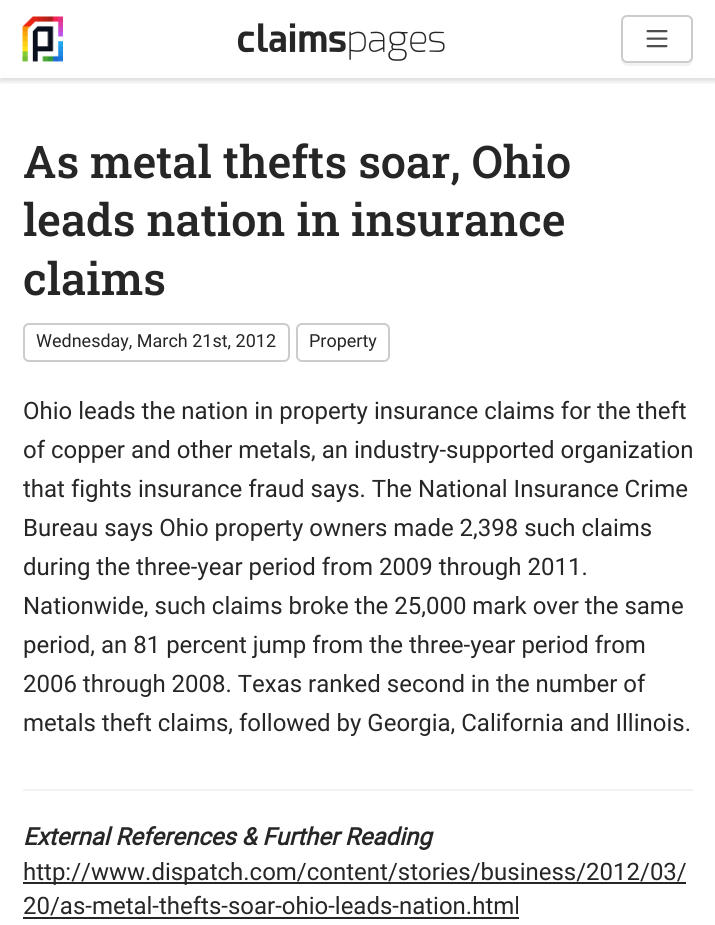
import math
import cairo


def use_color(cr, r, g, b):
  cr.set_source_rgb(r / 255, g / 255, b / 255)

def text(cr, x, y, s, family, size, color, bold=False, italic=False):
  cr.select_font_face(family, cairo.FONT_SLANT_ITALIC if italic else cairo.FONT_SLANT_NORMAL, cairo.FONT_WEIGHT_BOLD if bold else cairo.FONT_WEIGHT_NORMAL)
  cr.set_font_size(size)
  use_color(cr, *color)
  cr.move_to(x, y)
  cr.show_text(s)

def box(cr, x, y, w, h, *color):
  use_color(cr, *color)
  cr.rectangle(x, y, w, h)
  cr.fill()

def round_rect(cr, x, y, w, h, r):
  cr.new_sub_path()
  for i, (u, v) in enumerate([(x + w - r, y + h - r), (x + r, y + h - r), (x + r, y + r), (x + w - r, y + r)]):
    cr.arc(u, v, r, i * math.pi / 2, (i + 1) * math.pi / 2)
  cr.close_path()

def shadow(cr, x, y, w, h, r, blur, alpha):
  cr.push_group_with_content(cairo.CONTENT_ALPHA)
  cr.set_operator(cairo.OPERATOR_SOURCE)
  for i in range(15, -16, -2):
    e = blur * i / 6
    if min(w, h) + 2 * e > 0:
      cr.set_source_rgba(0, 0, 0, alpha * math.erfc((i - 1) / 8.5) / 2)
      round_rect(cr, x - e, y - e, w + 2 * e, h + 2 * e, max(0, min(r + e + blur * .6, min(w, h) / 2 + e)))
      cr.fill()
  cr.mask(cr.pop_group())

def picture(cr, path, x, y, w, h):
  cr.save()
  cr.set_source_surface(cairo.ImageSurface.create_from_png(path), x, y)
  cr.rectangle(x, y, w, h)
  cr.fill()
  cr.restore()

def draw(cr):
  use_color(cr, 255, 255, 255)
  cr.paint()
  cr.save()
  cr.rectangle(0, 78, 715, 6)
  cr.clip()
  use_color(cr, 0, 0, 0)
  shadow(cr, 0, 3, 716, 78, 0, 3, 0.15)
  cr.restore()
  picture(cr, "img_01.png", 22, 16, 41, 46)
  use_color(cr, 242, 242, 242)
  cr.new_path()
  cr.move_to(621, 57)
  cr.curve_to(621, 68, 627, 66, 637, 66)
  cr.line_to(677, 66)
  cr.curve_to(687, 66, 693, 68, 693, 57)
  cr.curve_to(693, 60, 690, 63, 687, 63)
  cr.line_to(627, 63)
  cr.curve_to(624, 63, 621, 60, 621, 57)
  cr.close_path()
  cr.fill()
  use_color(cr, 255, 255, 255)
  round_rect(cr, 622, 16, 70, 46, 5)
  cr.fill_preserve()
  use_color(cr, 204, 204, 204)
  cr.stroke()
  picture(cr, "img_02.png", 646, 30, 22, 18)
  round_rect(cr, 24, 324, 265, 37, 5)
  cr.stroke()
  round_rect(cr, 297, 324, 92, 37, 5)
  cr.stroke()
  box(cr, 23, 789, 670, 2, 242, 242, 242)
  box(cr, 23, 882, 663, 2, 38, 38, 38)
  box(cr, 23, 917, 496, 2, 38, 38, 38)
  text(cr, 237, 52, "claims", "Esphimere", 37.5, (38, 38, 38), bold=True)
  text(cr, 347, 52, "pages", "Esphimere ExtraLight", 37.5, (38, 38, 38))
  text(cr, 23, 178, "As metal thefts soar, Ohio", "Roboto Slab Medium", 45, (38, 38, 38))
  text(cr, 23, 236, "leads nation in insurance", "Roboto Slab Medium", 45, (38, 38, 38))
  text(cr, 23, 295, "claims", "Roboto Slab Medium", 45, (38, 38, 38))
  text(cr, 36, 347, "Wednesday, March 21st, 2012", "Roboto", 18, (38, 38, 38))
  text(cr, 309, 347, "Property", "Roboto", 18, (38, 38, 38))
  text(cr, 23, 419, "Ohio leads the nation in property insurance claims for the theft", "Roboto", 24, (38, 38, 38))
  text(cr, 23, 458, "of copper and other metals, an industry-supported organization", "Roboto", 24, (38, 38, 38))
  text(cr, 23, 497, "that fights insurance fraud says. The National Insurance Crime", "Roboto", 24, (38, 38, 38))
  text(cr, 23, 536, "Bureau says Ohio property owners made 2,398 such claims", "Roboto", 24, (38, 38, 38))
  text(cr, 23, 575, "during the three-year period from 2009 through 2011.", "Roboto", 24, (38, 38, 38))
  text(cr, 23, 614, "Nationwide, such claims broke the 25,000 mark over the same", "Roboto", 24, (38, 38, 38))
  text(cr, 23, 653, "period, an 81 percent jump from the three-year period from", "Roboto", 24, (38, 38, 38))
  text(cr, 23, 692, "2006 through 2008. Texas ranked second in the number of", "Roboto", 24, (38, 38, 38))
  text(cr, 23, 731, "metals theft claims, followed by Georgia, California and Illinois.", "Roboto", 24, (38, 38, 38))
  text(cr, 23, 845, "External References & Further Reading", "Roboto", 24, (38, 38, 38), bold=True, italic=True)
  text(cr, 23, 880, "http://www.dispatch.com/content/stories/business/2012/03/", "Roboto", 24, (38, 38, 38))
  text(cr, 23, 914, "20/as-metal-thefts-soar-ohio-leads-nation.html", "Roboto", 24, (38, 38, 38))


surface = cairo.ImageSurface(cairo.FORMAT_RGB24, 715, 925)
cr = cairo.Context(surface)
options = cairo.FontOptions()
options.set_hint_metrics(cairo.HINT_METRICS_OFF)
options.set_hint_style(cairo.HINT_STYLE_NONE)
cr.set_font_options(options)
cr.set_miter_limit(4)
draw(cr)
surface.write_to_png("out.png")
